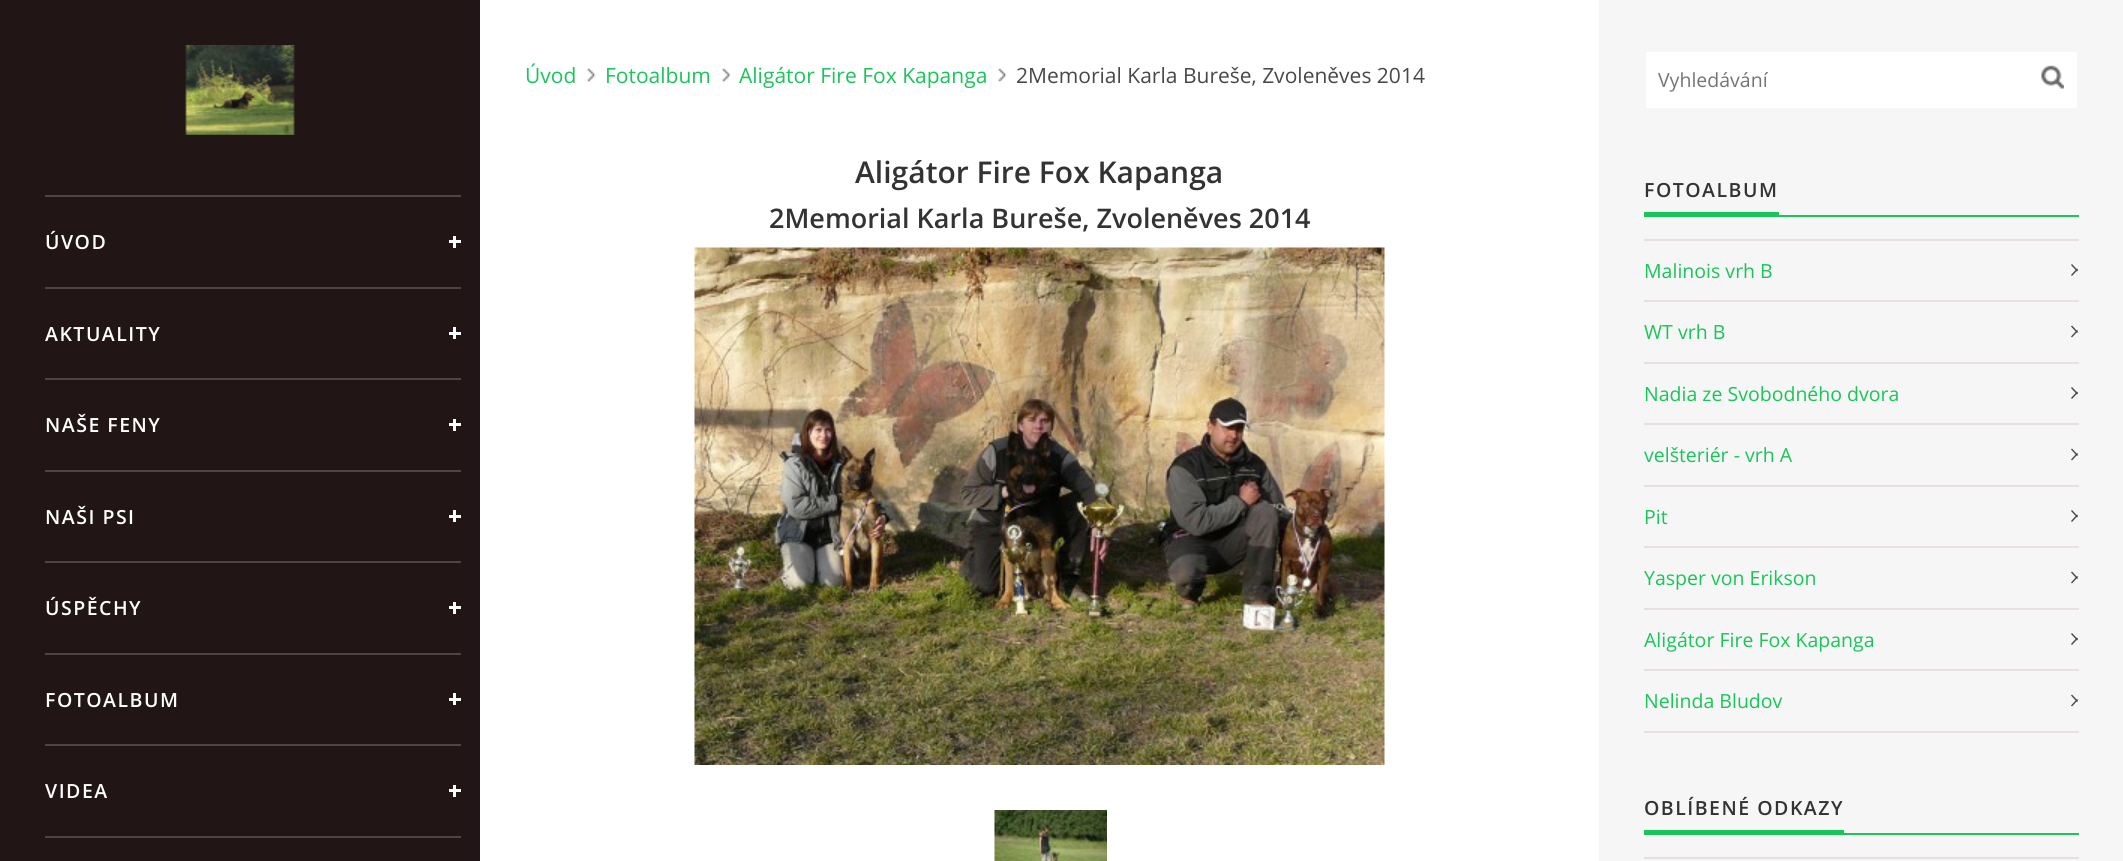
import math
import cairo


def use_color(cr, r, g, b):
  cr.set_source_rgb(r / 255, g / 255, b / 255)

def text(cr, x, y, s, family, size, color, bold=False, italic=False):
  cr.select_font_face(family, cairo.FONT_SLANT_ITALIC if italic else cairo.FONT_SLANT_NORMAL, cairo.FONT_WEIGHT_BOLD if bold else cairo.FONT_WEIGHT_NORMAL)
  cr.set_font_size(size)
  use_color(cr, *color)
  cr.move_to(x, y)
  cr.show_text(s)

def spaced_text(cr, x, y, s, letter, word):
  cr.move_to(x, y)
  for ch in s:
    cr.show_text(ch)
    cr.rel_move_to(letter + word * (ch == ' '), 0)

def box(cr, x, y, w, h, *color):
  use_color(cr, *color)
  cr.rectangle(x, y, w, h)
  cr.fill()

def picture(cr, path, x, y, w, h):
  cr.save()
  cr.set_source_surface(cairo.ImageSurface.create_from_png(path), x, y)
  cr.rectangle(x, y, w, h)
  cr.fill()
  cr.restore()

def draw(cr):
  use_color(cr, 255, 255, 255)
  cr.paint()
  box(cr, 0, 0, 480, 861, 33, 21, 21)
  picture(cr, "img_01.png", 185, 45, 110, 90)
  box(cr, 45, 195, 416, 2, 77, 68, 68)
  box(cr, 449, 240, 12, 3, 255, 255, 255)
  box(cr, 453, 236, 3, 12, 255, 255, 255)
  box(cr, 45, 287, 416, 2, 77, 68, 68)
  box(cr, 449, 332, 12, 3, 255, 255, 255)
  box(cr, 453, 327, 3, 12, 255, 255, 255)
  box(cr, 45, 378, 416, 2, 77, 68, 68)
  box(cr, 449, 423, 12, 3, 255, 255, 255)
  box(cr, 453, 419, 3, 12, 255, 255, 255)
  box(cr, 45, 470, 416, 2, 77, 68, 68)
  box(cr, 449, 515, 12, 3, 255, 255, 255)
  box(cr, 453, 510, 3, 12, 255, 255, 255)
  box(cr, 45, 561, 416, 2, 77, 68, 68)
  box(cr, 449, 606, 12, 3, 255, 255, 255)
  box(cr, 453, 602, 3, 12, 255, 255, 255)
  box(cr, 45, 653, 416, 2, 77, 68, 68)
  box(cr, 449, 698, 12, 3, 255, 255, 255)
  box(cr, 453, 693, 3, 12, 255, 255, 255)
  box(cr, 45, 744, 416, 2, 77, 68, 68)
  box(cr, 449, 789, 12, 3, 255, 255, 255)
  box(cr, 453, 785, 3, 12, 255, 255, 255)
  box(cr, 45, 836, 416, 2, 77, 68, 68)
  picture(cr, "img_02.png", 586, 67, 10, 16)
  picture(cr, "img_02.png", 721, 67, 10, 16)
  picture(cr, "img_03.png", 997, 67, 10, 16)
  picture(cr, "img_04.png", 694, 247, 691, 518)
  picture(cr, "img_05.png", 994, 810, 113, 51)
  box(cr, 1599, 0, 524, 861, 246, 246, 246)
  box(cr, 1646, 52, 431, 56, 255, 255, 255)
  picture(cr, "img_06.png", 2041, 65, 23, 24)
  box(cr, 1644, 212, 135, 3, 25, 197, 89)
  box(cr, 1644, 215, 435, 2, 25, 197, 89)
  box(cr, 1644, 239, 435, 2, 232, 223, 223)
  box(cr, 1644, 300, 435, 2, 232, 223, 223)
  use_color(cr, 72, 72, 72)
  cr.new_path()
  cr.move_to(2072, 264)
  cr.line_to(2078, 270.5)
  cr.line_to(2077, 271.5)
  cr.line_to(2071, 265)
  cr.close_path()
  cr.fill()
  cr.new_path()
  cr.move_to(2071, 275)
  cr.line_to(2077, 268.5)
  cr.line_to(2078, 269.5)
  cr.line_to(2072, 276)
  cr.close_path()
  cr.fill()
  box(cr, 1644, 362, 435, 2, 232, 223, 223)
  use_color(cr, 72, 72, 72)
  cr.new_path()
  cr.move_to(2072, 325.5)
  cr.line_to(2078, 332)
  cr.line_to(2077, 333)
  cr.line_to(2071, 326.5)
  cr.close_path()
  cr.fill()
  cr.new_path()
  cr.move_to(2071, 336.5)
  cr.line_to(2077, 330)
  cr.line_to(2078, 331)
  cr.line_to(2072, 337.5)
  cr.close_path()
  cr.fill()
  box(cr, 1644, 423, 435, 2, 232, 223, 223)
  use_color(cr, 72, 72, 72)
  cr.new_path()
  cr.move_to(2072, 387)
  cr.line_to(2078, 393.5)
  cr.line_to(2077, 394.5)
  cr.line_to(2071, 388)
  cr.close_path()
  cr.fill()
  cr.new_path()
  cr.move_to(2071, 398)
  cr.line_to(2077, 391.5)
  cr.line_to(2078, 392.5)
  cr.line_to(2072, 399)
  cr.close_path()
  cr.fill()
  box(cr, 1644, 485, 435, 2, 232, 223, 223)
  use_color(cr, 72, 72, 72)
  cr.new_path()
  cr.move_to(2072, 448.5)
  cr.line_to(2078, 455)
  cr.line_to(2077, 456)
  cr.line_to(2071, 449.5)
  cr.close_path()
  cr.fill()
  cr.new_path()
  cr.move_to(2071, 459.5)
  cr.line_to(2077, 453)
  cr.line_to(2078, 454)
  cr.line_to(2072, 460.5)
  cr.close_path()
  cr.fill()
  box(cr, 1644, 546, 435, 2, 232, 223, 223)
  use_color(cr, 72, 72, 72)
  cr.new_path()
  cr.move_to(2072, 510)
  cr.line_to(2078, 516.5)
  cr.line_to(2077, 517.5)
  cr.line_to(2071, 511)
  cr.close_path()
  cr.fill()
  cr.new_path()
  cr.move_to(2071, 521)
  cr.line_to(2077, 514.5)
  cr.line_to(2078, 515.5)
  cr.line_to(2072, 522)
  cr.close_path()
  cr.fill()
  box(cr, 1644, 608, 435, 2, 232, 223, 223)
  use_color(cr, 72, 72, 72)
  cr.new_path()
  cr.move_to(2072, 571.5)
  cr.line_to(2078, 578)
  cr.line_to(2077, 579)
  cr.line_to(2071, 572.5)
  cr.close_path()
  cr.fill()
  cr.new_path()
  cr.move_to(2071, 582.5)
  cr.line_to(2077, 576)
  cr.line_to(2078, 577)
  cr.line_to(2072, 583.5)
  cr.close_path()
  cr.fill()
  box(cr, 1644, 669, 435, 2, 232, 223, 223)
  use_color(cr, 72, 72, 72)
  cr.new_path()
  cr.move_to(2072, 633)
  cr.line_to(2078, 639.5)
  cr.line_to(2077, 640.5)
  cr.line_to(2071, 634)
  cr.close_path()
  cr.fill()
  cr.new_path()
  cr.move_to(2071, 644)
  cr.line_to(2077, 637.5)
  cr.line_to(2078, 638.5)
  cr.line_to(2072, 645)
  cr.close_path()
  cr.fill()
  box(cr, 1644, 731, 435, 2, 232, 223, 223)
  use_color(cr, 72, 72, 72)
  cr.new_path()
  cr.move_to(2072, 694.5)
  cr.line_to(2078, 701)
  cr.line_to(2077, 702)
  cr.line_to(2071, 695.5)
  cr.close_path()
  cr.fill()
  cr.new_path()
  cr.move_to(2071, 705.5)
  cr.line_to(2077, 699)
  cr.line_to(2078, 700)
  cr.line_to(2072, 706.5)
  cr.close_path()
  cr.fill()
  box(cr, 1644, 830, 200, 3, 25, 197, 89)
  box(cr, 1644, 833, 435, 2, 25, 197, 89)
  box(cr, 1644, 857, 435, 2, 232, 223, 223)
  cr.select_font_face("Open Sans SemiBold")
  cr.set_font_size(19.5)
  use_color(cr, 255, 255, 255)
  spaced_text(cr, 45, 249, "ÚVOD", 1.5, 0)
  spaced_text(cr, 45, 341, "AKTUALITY", 1.5, 0)
  spaced_text(cr, 45, 432, "NAŠE FENY", 1.5, 0)
  spaced_text(cr, 45, 524, "NAŠI PSI", 1.5, 0)
  spaced_text(cr, 45, 615, "ÚSPĚCHY", 1.5, 0)
  spaced_text(cr, 45, 707, "FOTOALBUM", 1.5, 0)
  spaced_text(cr, 45, 798, "VIDEA", 1.5, 0)
  text(cr, 525, 83, "Úvod", "Open Sans", 21, (25, 197, 89))
  text(cr, 605, 83, "Fotoalbum", "Open Sans", 21, (25, 197, 89))
  text(cr, 739, 83, "Aligátor Fire Fox Kapanga", "Open Sans", 21, (25, 197, 89))
  text(cr, 1016, 83, "2Memorial Karla Bureše, Zvoleněves 2014", "Open Sans", 21, (72, 72, 72))
  text(cr, 855, 183, "Aligátor Fire Fox Kapanga", "Open Sans SemiBold", 30, (51, 51, 51))
  text(cr, 769, 228, "2Memorial Karla Bureše, Zvoleněves 2014", "Open Sans SemiBold", 27, (51, 51, 51))
  text(cr, 1658, 87, "Vyhledávání", "Open Sans", 19.5, (117, 117, 117))
  cr.select_font_face("Open Sans SemiBold")
  use_color(cr, 51, 51, 51)
  spaced_text(cr, 1644, 197, "FOTOALBUM", 1.5, 0)
  text(cr, 1644, 278, "Malinois vrh B", "Open Sans", 19.5, (25, 197, 89))
  text(cr, 1644, 339, "WT vrh B", "Open Sans", 19.5, (25, 197, 89))
  text(cr, 1644, 401, "Nadia ze Svobodného dvora", "Open Sans", 19.5, (25, 197, 89))
  text(cr, 1644, 462, "velšteriér - vrh A", "Open Sans", 19.5, (25, 197, 89))
  text(cr, 1644, 524, "Pit", "Open Sans", 19.5, (25, 197, 89))
  text(cr, 1644, 585, "Yasper von Erikson", "Open Sans", 19.5, (25, 197, 89))
  text(cr, 1644, 647, "Aligátor Fire Fox Kapanga", "Open Sans", 19.5, (25, 197, 89))
  text(cr, 1644, 708, "Nelinda Bludov", "Open Sans", 19.5, (25, 197, 89))
  cr.select_font_face("Open Sans SemiBold")
  use_color(cr, 51, 51, 51)
  spaced_text(cr, 1644, 815, "OBLÍBENÉ ODKAZY", 1.5, 0)


surface = cairo.ImageSurface(cairo.FORMAT_RGB24, 2123, 861)
cr = cairo.Context(surface)
options = cairo.FontOptions()
options.set_hint_metrics(cairo.HINT_METRICS_OFF)
options.set_hint_style(cairo.HINT_STYLE_NONE)
cr.set_font_options(options)
cr.set_miter_limit(4)
draw(cr)
surface.write_to_png("out.png")
